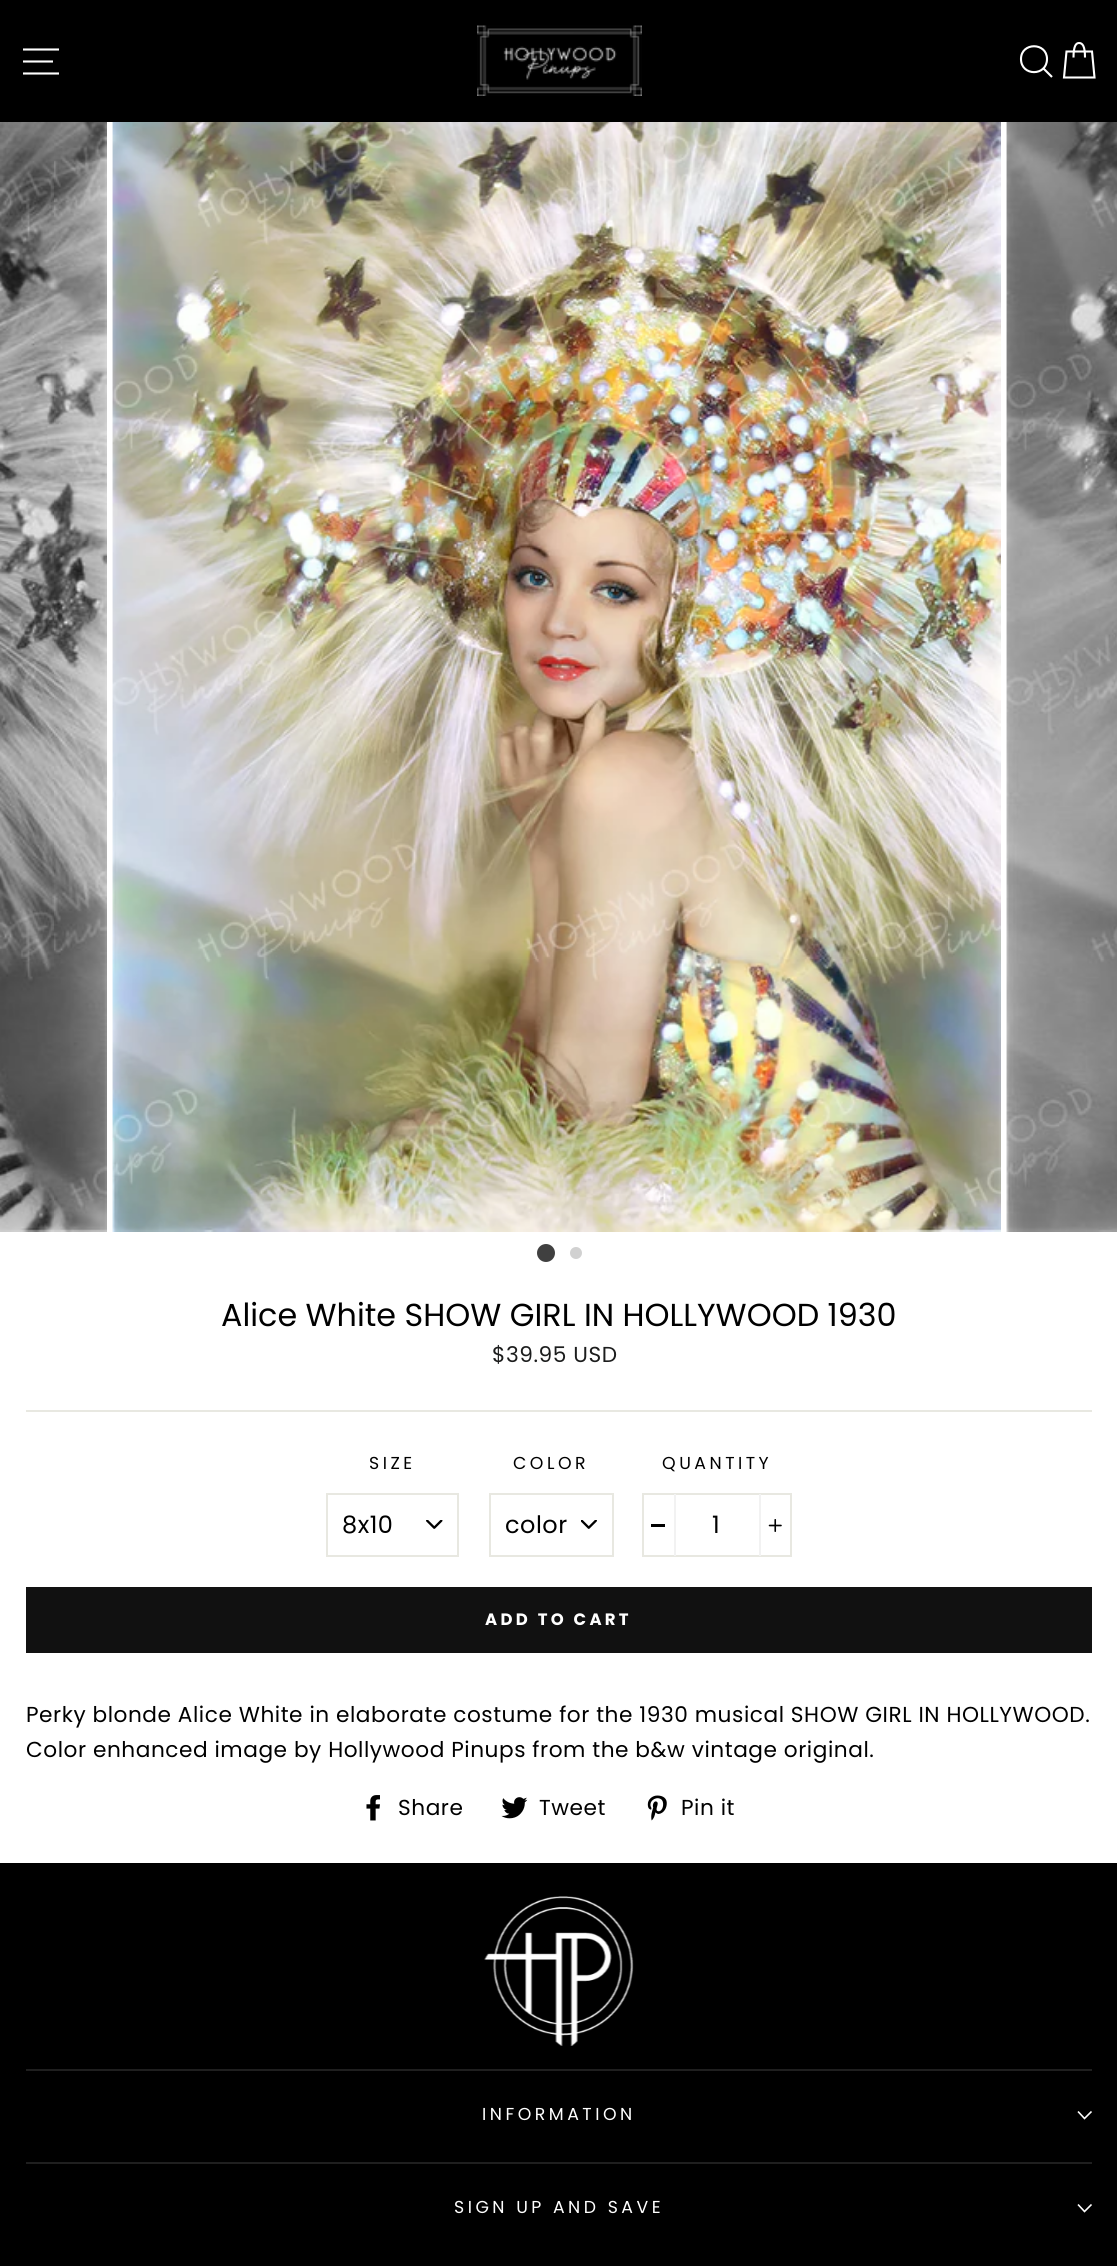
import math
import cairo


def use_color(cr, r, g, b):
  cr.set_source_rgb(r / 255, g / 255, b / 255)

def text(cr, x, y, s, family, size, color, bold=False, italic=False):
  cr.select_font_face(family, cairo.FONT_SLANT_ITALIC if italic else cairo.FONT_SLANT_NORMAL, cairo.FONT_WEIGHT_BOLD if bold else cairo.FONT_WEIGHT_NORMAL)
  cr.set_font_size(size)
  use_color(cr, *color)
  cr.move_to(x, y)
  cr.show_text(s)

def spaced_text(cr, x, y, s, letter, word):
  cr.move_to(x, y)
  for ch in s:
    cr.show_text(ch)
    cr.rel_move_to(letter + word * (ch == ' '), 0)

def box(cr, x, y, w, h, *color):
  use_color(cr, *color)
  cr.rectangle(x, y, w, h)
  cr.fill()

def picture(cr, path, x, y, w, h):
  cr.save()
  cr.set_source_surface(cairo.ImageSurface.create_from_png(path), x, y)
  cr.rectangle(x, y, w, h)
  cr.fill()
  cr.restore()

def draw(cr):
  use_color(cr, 255, 255, 255)
  cr.paint()
  box(cr, 0, 0, 1117, 122, 0, 0, 0)
  cr.new_path()
  cr.move_to(23, 49.5)
  cr.line_to(59, 49.5)
  cr.move_to(23, 61.5)
  cr.line_to(53, 61.5)
  cr.move_to(23, 73.5)
  cr.line_to(59, 73.5)
  use_color(cr, 255, 255, 255)
  cr.set_line_width(2.1)
  cr.stroke()
  picture(cr, "img_01.png", 477, 25, 165, 71)
  cr.new_path()
  cr.move_to(1047, 59)
  cr.curve_to(1047, 76.5, 1021, 76.5, 1021, 59)
  cr.curve_to(1021, 42, 1047, 42, 1047, 59)
  cr.close_path()
  cr.move_to(1052, 77)
  cr.line_to(1043.5, 68.5)
  cr.stroke()
  cr.new_path()
  cr.move_to(1073.5, 57.5)
  cr.curve_to(1073.5, 46, 1076, 43, 1079, 43)
  cr.curve_to(1082.5, 43, 1085, 46, 1085, 57.5)
  cr.move_to(1066.5, 51.5)
  cr.line_to(1092, 51.5)
  cr.line_to(1094.5, 77.5)
  cr.line_to(1064, 77.5)
  cr.close_path()
  cr.stroke()
  picture(cr, "img_02.png", 0, 122, 107, 1110)
  picture(cr, "img_03.png", 112, 122, 889, 1110)
  picture(cr, "img_04.png", 1006, 122, 111, 1110)
  use_color(cr, 64, 64, 64)
  cr.arc(546, 1253, 9, 0, 2 * math.pi)
  cr.fill()
  use_color(cr, 209, 209, 209)
  cr.arc(576, 1253, 6, 0, 2 * math.pi)
  cr.fill()
  box(cr, 26, 1410, 1066, 2, 232, 232, 225)
  picture(cr, "img_05.png", 426, 1520, 17, 9)
  cr.rectangle(327, 1494, 131, 62)
  cr.set_line_width(2)
  cr.stroke()
  picture(cr, "img_06.png", 581, 1520, 16, 9)
  cr.rectangle(490, 1494, 123, 62)
  cr.stroke()
  cr.rectangle(643, 1494, 148, 62)
  cr.stroke()
  box(cr, 674, 1494, 2, 62, 242, 242, 242)
  box(cr, 651, 1524, 14, 3, 0, 0, 0)
  box(cr, 759, 1494, 2, 62, 242, 242, 242)
  picture(cr, "img_07.png", 768, 1519, 14, 13)
  box(cr, 26, 1587, 1066, 66, 17, 17, 17)
  picture(cr, "img_08.png", 366, 1795, 14, 26)
  picture(cr, "img_09.png", 501, 1797, 27, 22)
  picture(cr, "img_10.png", 647, 1795, 20, 26)
  box(cr, 0, 1863, 1117, 403, 0, 0, 0)
  picture(cr, "img_11.png", 484, 1896, 150, 150)
  box(cr, 26, 2069, 1066, 2, 31, 31, 31)
  cr.new_path()
  cr.move_to(1078, 2111.5)
  cr.line_to(1084.5, 2118.5)
  cr.line_to(1091.5, 2111.5)
  use_color(cr, 255, 255, 255)
  cr.set_line_width(1.6)
  cr.stroke()
  box(cr, 26, 2162, 1066, 2, 31, 31, 31)
  cr.new_path()
  cr.move_to(1078, 2204.5)
  cr.line_to(1084.5, 2211.5)
  cr.line_to(1091.5, 2204.5)
  use_color(cr, 255, 255, 255)
  cr.stroke()
  text(cr, 221, 1326, "Alice White SHOW GIRL IN HOLLYWOOD 1930", "Poppins", 31.8, (0, 0, 0))
  cr.set_font_size(21.65)
  use_color(cr, 28, 29, 29)
  spaced_text(cr, 492, 1362, "$39.95 USD", 0.55, 0)
  cr.set_font_size(17.3)
  use_color(cr, 0, 0, 0)
  spaced_text(cr, 369, 1469, "SIZE", 3.5, 0)
  cr.set_font_size(24)
  spaced_text(cr, 342, 1533, "8x10", 0.5, 0)
  cr.set_font_size(17.3)
  spaced_text(cr, 513, 1469, "COLOR", 3.5, 0)
  cr.save()
  cr.rectangle(506, 1506, 64, 38)
  cr.clip()
  cr.set_font_size(24)
  spaced_text(cr, 505, 1533, "color", 0.5, 0)
  cr.restore()
  spaced_text(cr, 662, 1469, "QUANTITY", 3.5, 0)
  cr.set_font_size(24)
  spaced_text(cr, 712, 1533, "1", 0.5, 0)
  cr.select_font_face("Poppins", cairo.FONT_SLANT_NORMAL, cairo.FONT_WEIGHT_BOLD)
  cr.set_font_size(16.5)
  use_color(cr, 255, 255, 255)
  spaced_text(cr, 485, 1625, "ADD TO CART", 3.25, 0)
  cr.select_font_face("Poppins")
  cr.set_font_size(21.65)
  use_color(cr, 0, 0, 0)
  spaced_text(cr, 26, 1722, "Perky blonde Alice White in elaborate costume for the 1930 musical SHOW GIRL IN HOLLYWOOD.", 0.55, 0)
  spaced_text(cr, 26, 1757, "Color enhanced image by Hollywood Pinups from the b&w vintage original.", 0.55, 0)
  spaced_text(cr, 398, 1815, "Share", 0.55, 0)
  spaced_text(cr, 539, 1815, "Tweet", 0.55, 0)
  spaced_text(cr, 681, 1815, "Pin it", 0.55, 0)
  cr.set_font_size(17.3)
  use_color(cr, 255, 255, 255)
  spaced_text(cr, 482, 2120, "INFORMATION", 3.5, 0)
  spaced_text(cr, 454, 2213, "SIGN UP AND SAVE", 3.5, 0)


surface = cairo.ImageSurface(cairo.FORMAT_RGB24, 1117, 2266)
cr = cairo.Context(surface)
options = cairo.FontOptions()
options.set_hint_metrics(cairo.HINT_METRICS_OFF)
options.set_hint_style(cairo.HINT_STYLE_NONE)
cr.set_font_options(options)
cr.set_miter_limit(4)
draw(cr)
surface.write_to_png("out.png")
